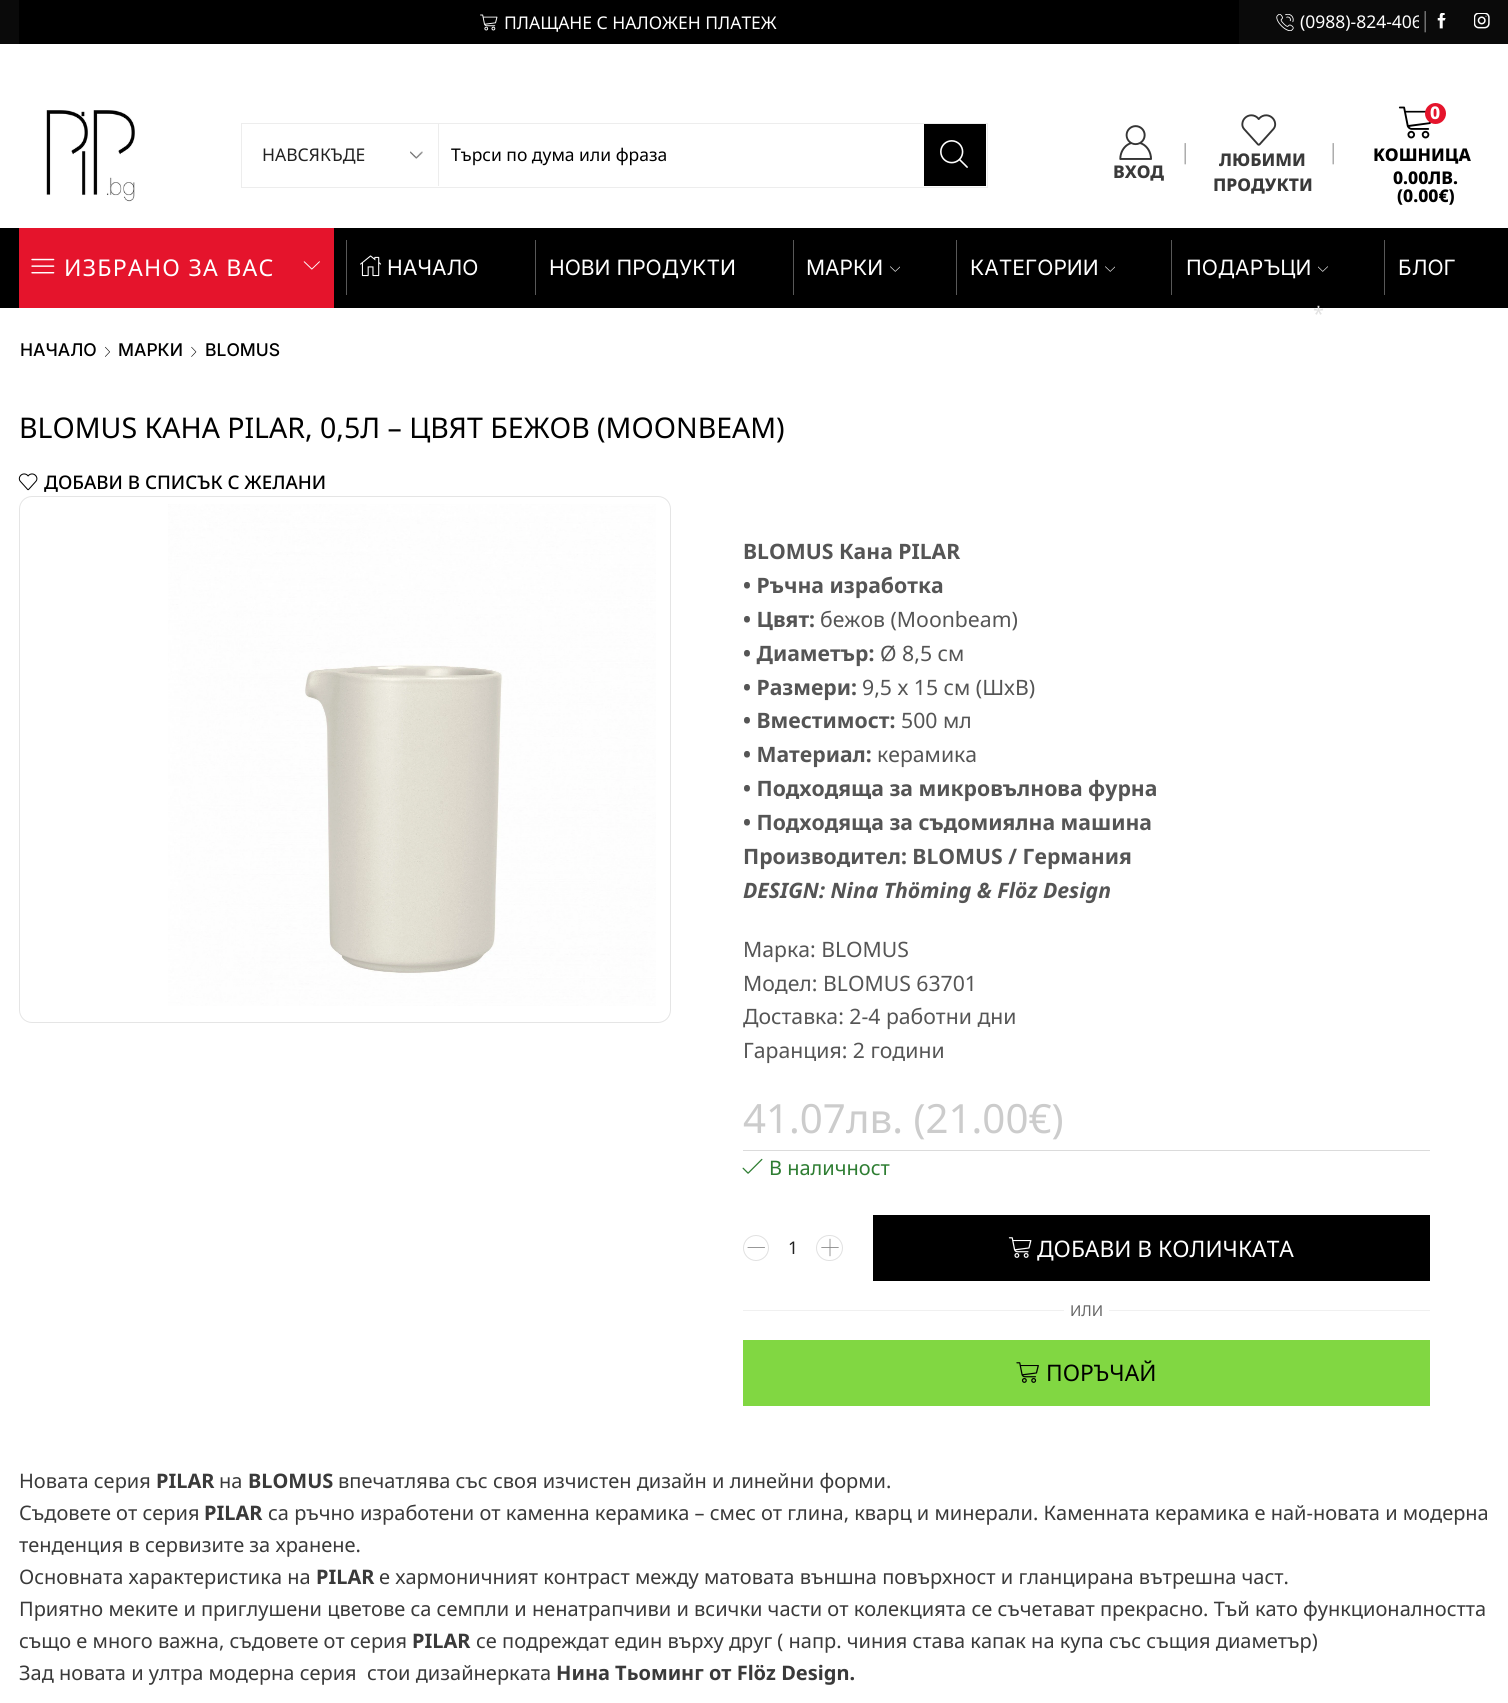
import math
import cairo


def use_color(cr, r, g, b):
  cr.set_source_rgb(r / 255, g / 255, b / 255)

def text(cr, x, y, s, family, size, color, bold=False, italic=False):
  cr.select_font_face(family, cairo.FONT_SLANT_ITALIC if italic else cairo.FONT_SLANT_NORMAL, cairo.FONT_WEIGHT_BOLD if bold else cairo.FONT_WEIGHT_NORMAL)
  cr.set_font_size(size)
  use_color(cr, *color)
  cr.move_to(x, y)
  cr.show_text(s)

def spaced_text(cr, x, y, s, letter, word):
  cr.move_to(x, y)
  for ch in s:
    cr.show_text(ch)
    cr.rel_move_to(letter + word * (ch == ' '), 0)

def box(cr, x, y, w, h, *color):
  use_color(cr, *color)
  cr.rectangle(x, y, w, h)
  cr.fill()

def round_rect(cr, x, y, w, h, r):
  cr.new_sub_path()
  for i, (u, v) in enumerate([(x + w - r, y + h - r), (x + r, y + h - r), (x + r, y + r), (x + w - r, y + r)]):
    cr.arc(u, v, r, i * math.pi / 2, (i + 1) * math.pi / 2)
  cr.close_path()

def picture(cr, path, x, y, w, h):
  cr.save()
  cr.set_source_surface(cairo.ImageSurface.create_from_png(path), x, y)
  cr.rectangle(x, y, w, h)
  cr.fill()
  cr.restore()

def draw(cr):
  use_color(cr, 255, 255, 255)
  cr.paint()
  box(cr, 0, 0, 1508, 44, 10, 10, 10)
  box(cr, 19, 0, 1220, 44, 0, 0, 0)
  picture(cr, "img_01.png", 480, 14, 18, 17)
  picture(cr, "img_02.png", 1276, 14, 18, 17)
  picture(cr, "img_03.png", 1437, 13, 9, 16)
  picture(cr, "img_04.png", 1474, 13, 16, 16)
  picture(cr, "img_05.png", 46, 110, 89, 92)
  cr.rectangle(241.5, 123.5, 746, 64)
  use_color(cr, 237, 237, 237)
  cr.set_line_width(1)
  cr.stroke()
  picture(cr, "img_06.png", 410, 151, 13, 8)
  box(cr, 438, 124, 1, 62, 237, 237, 237)
  box(cr, 924, 124, 62, 62, 0, 0, 0)
  picture(cr, "img_07.png", 940, 140, 28, 28)
  picture(cr, "img_08.png", 1241, 114, 36, 32)
  picture(cr, "img_09.png", 1398, 106, 33, 33)
  use_color(cr, 229, 20, 44)
  cr.arc(1435.5, 113.5, 10.5, 0, 2 * math.pi)
  cr.fill()
  picture(cr, "img_10.png", 1119, 125, 33, 35)
  box(cr, 0, 228, 1508, 80, 0, 0, 0)
  box(cr, 19, 228, 315, 80, 229, 20, 44)
  picture(cr, "img_11.png", 31, 258, 24, 16)
  picture(cr, "img_12.png", 303, 261, 17, 9)
  box(cr, 346, 240, 1, 55, 88, 88, 88)
  picture(cr, "img_13.png", 360, 255, 22, 22)
  box(cr, 535, 240, 1, 55, 88, 88, 88)
  box(cr, 793, 240, 1, 55, 88, 88, 88)
  picture(cr, "img_14.png", 890, 266, 10, 6)
  box(cr, 956, 240, 1, 55, 88, 88, 88)
  picture(cr, "img_14.png", 1105, 266, 10, 6)
  box(cr, 1171, 240, 1, 55, 88, 88, 88)
  picture(cr, "img_15.png", 1318, 266, 10, 6)
  box(cr, 1384, 240, 1, 55, 88, 88, 88)
  picture(cr, "img_16.png", 105, 346, 5, 11)
  picture(cr, "img_17.png", 191, 346, 6, 11)
  picture(cr, "img_18.png", 18, 473, 20, 18)
  round_rect(cr, 19.5, 496.5, 651, 526, 12.5)
  use_color(cr, 229, 229, 229)
  cr.stroke()
  picture(cr, "img_19.png", 168, 504, 488, 502)
  box(cr, 743, 1150, 687, 1, 219, 219, 219)
  picture(cr, "img_20.png", 742, 1158, 21, 16)
  cr.arc(756, 1248, 12.5, 0, 2 * math.pi)
  use_color(cr, 225, 225, 225)
  cr.stroke()
  picture(cr, "img_21.png", 747, 1247, 18, 1)
  round_rect(cr, 816.5, 1235.5, 26, 25, 12.5)
  cr.stroke()
  picture(cr, "img_22.png", 821, 1238, 18, 19)
  box(cr, 873, 1215, 557, 66, 0, 0, 0)
  picture(cr, "img_23.png", 1008, 1237, 24, 21)
  box(cr, 743, 1310, 321, 1, 240, 240, 240)
  box(cr, 1109, 1310, 321, 1, 240, 240, 240)
  box(cr, 743, 1340, 687, 66, 129, 215, 66)
  picture(cr, "img_24.png", 1016, 1362, 23, 21)
  text(cr, 504, 29, "ПЛАЩАНЕ С НАЛОЖЕН ПЛАТЕЖ", "Noto Sans", 17.5, (255, 255, 255))
  cr.save()
  cr.rectangle(1276, 10, 143, 25)
  cr.clip()
  text(cr, 1300, 28, "(0988)-824-406", "Noto Sans", 17.5, (255, 255, 255))
  cr.restore()
  text(cr, 1419, 27, "│", "Liberation Serif", 17.5, (133, 133, 133))
  text(cr, 262, 161, "НАВСЯКЪДЕ", "Noto Sans", 17.5, (34, 34, 34))
  text(cr, 451, 161, "Търси по дума или фраза", "Noto Sans", 17.5, (0, 0, 0))
  text(cr, 1179, 159, "│", "Liberation Serif", 17.5, (154, 154, 154))
  text(cr, 1219, 166, "ЛЮБИМИ", "Noto Sans ExtraBold", 17.5, (58, 58, 58))
  text(cr, 1213, 191, "ПРОДУКТИ", "Noto Sans ExtraBold", 17.5, (58, 58, 58))
  text(cr, 1327, 159, "│", "Liberation Serif", 17.5, (154, 154, 154))
  text(cr, 1430, 119, "0", "Noto Sans ExtraBold", 17.5, (255, 255, 255))
  text(cr, 1373, 161, "KOШНИЦА", "Noto Sans ExtraBold", 17.5, (0, 0, 0))
  text(cr, 1393, 184, "0.00ЛВ.", "Noto Sans ExtraBold", 17.5, (0, 0, 0))
  text(cr, 1397, 202, "(0.00€)", "Noto Sans ExtraBold", 17.5, (0, 0, 0))
  text(cr, 1113, 178, "ВХОД", "Noto Sans ExtraBold", 17.5, (58, 58, 58))
  text(cr, 1313, 321, "*", "Noto Sans", 20, (226, 226, 226))
  cr.set_font_size(23.1)
  use_color(cr, 255, 255, 255)
  spaced_text(cr, 64, 276, "ИЗБРАНО ЗА ВАС", 1.25, 0)
  text(cr, 387, 275, "НАЧАЛО", "Inter", 21.1, (255, 255, 255))
  text(cr, 549, 275, "НОВИ ПРОДУКТИ", "Inter", 21.1, (255, 255, 255))
  text(cr, 806, 275, "МАРКИ", "Inter", 21.1, (255, 255, 255))
  text(cr, 970, 275, "КАТЕГОРИИ", "Inter", 21.1, (255, 255, 255))
  text(cr, 1186, 275, "ПОДАРЪЦИ", "Inter", 21.1, (255, 255, 255))
  text(cr, 1398, 275, "БЛОГ", "Inter", 21.1, (255, 255, 255))
  text(cr, 20, 356, "НАЧАЛО", "Inter Medium", 17.5, (0, 0, 0))
  text(cr, 118, 356, "МАРКИ", "Inter Medium", 17.5, (0, 0, 0))
  text(cr, 205, 356, "BLOMUS", "Inter Medium", 17.5, (0, 0, 0))
  text(cr, 19, 438, "BLOMUS КАНА PILAR, 0,5Л – ЦВЯТ БЕЖОВ (MOONBEAM)", "Noto Sans", 28.5, (0, 0, 0))
  text(cr, 44, 489, "ДОБАВИ В СПИСЪК С ЖЕЛАНИ", "Noto Sans Medium", 18.75, (0, 0, 0))
  text(cr, 743, 559, "BLOMUS Кана PILAR", "Noto Sans", 21.2, (85, 85, 85), bold=True)
  text(cr, 743, 593, "• Ръчна изработка", "Noto Sans", 21.2, (85, 85, 85), bold=True)
  text(cr, 743, 627, "• Цвят:", "Noto Sans", 21.2, (85, 85, 85), bold=True)
  text(cr, 820, 627, "бежов (Moonbeam)", "Noto Sans", 21.2, (85, 85, 85))
  text(cr, 743, 661, "• Диаметър:", "Noto Sans", 21.2, (85, 85, 85), bold=True)
  text(cr, 880, 661, "Ø 8,5 см", "Noto Sans", 21.2, (85, 85, 85))
  text(cr, 743, 695, "• Размери:", "Noto Sans", 21.2, (85, 85, 85), bold=True)
  text(cr, 862, 695, "9,5 х 15 см (ШхВ)", "Noto Sans", 21.2, (85, 85, 85))
  text(cr, 743, 728, "• Вместимост:", "Noto Sans", 21.2, (85, 85, 85), bold=True)
  text(cr, 901, 728, "500 мл", "Noto Sans", 21.2, (85, 85, 85))
  text(cr, 743, 762, "• Материал:", "Noto Sans", 21.2, (85, 85, 85), bold=True)
  text(cr, 877, 762, "керамика", "Noto Sans", 21.2, (85, 85, 85))
  text(cr, 743, 796, "• Подходяща за микровълнова фурна", "Noto Sans", 21.2, (85, 85, 85), bold=True)
  text(cr, 743, 830, "• Подходяща за съдомиялна машина", "Noto Sans", 21.2, (85, 85, 85), bold=True)
  text(cr, 743, 864, "Производител: BLOMUS / Германия", "Noto Sans", 21.2, (85, 85, 85), bold=True)
  text(cr, 743, 898, "DESIGN: Nina Thöming & Flöz Design", "Noto Sans", 21.2, (85, 85, 85), bold=True, italic=True)
  text(cr, 743, 957, "Марка: BLOMUS", "Noto Sans", 21.2, (85, 85, 85))
  text(cr, 743, 991, "Модел: BLOMUS 63701", "Noto Sans", 21.2, (85, 85, 85))
  text(cr, 743, 1024, "Доставка: 2-4 работни дни", "Noto Sans", 21.2, (85, 85, 85))
  text(cr, 743, 1058, "Гаранция: 2 години", "Noto Sans", 21.2, (85, 85, 85))
  text(cr, 743, 1133, "41.07лв. (21.00€)", "Noto Sans", 40.25, (204, 204, 204))
  text(cr, 769, 1175, "В наличност", "Noto Sans", 20, (46, 125, 50))
  text(cr, 788, 1254, "1", "Noto Sans", 17.5, (34, 34, 34))
  text(cr, 1037, 1257, "ДОБАВИ В КОЛИЧКАТА", "Noto Sans", 22.75, (255, 255, 255))
  text(cr, 1070, 1316, "ИЛИ", "Noto Sans", 15, (100, 100, 100))
  text(cr, 1046, 1381, "ПОРЪЧАЙ", "Noto Sans", 22.75, (0, 0, 0))
  text(cr, 19, 1488, "Новата серия", "Noto Sans", 20, (58, 58, 58))
  text(cr, 156, 1488, "PILAR", "Noto Sans", 20, (58, 58, 58), bold=True)
  text(cr, 219, 1488, "на", "Noto Sans", 20, (58, 58, 58))
  text(cr, 248, 1488, "BLOMUS", "Noto Sans", 20, (58, 58, 58), bold=True)
  text(cr, 338, 1488, "впечатлява със своя изчистен дизайн и линейни форми.", "Noto Sans", 20, (58, 58, 58))
  text(cr, 19, 1520, "Съдовете от серия", "Noto Sans", 20, (58, 58, 58))
  text(cr, 204, 1520, "PILAR", "Noto Sans", 20, (58, 58, 58), bold=True)
  text(cr, 268, 1520, "са ръчно изработени от каменна керамика – смес от глина, кварц и минерали. Каменната керамика е най-новата и модерна", "Noto Sans", 20, (58, 58, 58))
  text(cr, 19, 1552, "тенденция в сервизите за хранене.", "Noto Sans", 20, (58, 58, 58))
  text(cr, 19, 1584, "Основната характеристика на", "Noto Sans", 20, (58, 58, 58))
  text(cr, 316, 1584, "PILAR", "Noto Sans", 20, (58, 58, 58), bold=True)
  text(cr, 379, 1584, "е хармоничният контраст между матовата външна повърхност и гланцирана вътрешна част.", "Noto Sans", 20, (58, 58, 58))
  text(cr, 19, 1616, "Приятно меките и приглушени цветове са семпли и ненатрапчиви и всички части от колекцията се съчетават прекрасно. Тъй като функционалността", "Noto Sans", 20, (58, 58, 58))
  text(cr, 19, 1648, "също е много важна, съдовете от серия", "Noto Sans", 20, (58, 58, 58))
  text(cr, 412, 1648, "PILAR", "Noto Sans", 20, (58, 58, 58), bold=True)
  text(cr, 476, 1648, "се подреждат един върху друг ( напр. чиния става капак на купа със същия диаметър)", "Noto Sans", 20, (58, 58, 58))
  text(cr, 19, 1680, "Зад новата и ултра модерна серия  стои дизайнерката", "Noto Sans", 20, (58, 58, 58))
  text(cr, 556, 1680, "Нина Тьоминг от Flöz Design.", "Noto Sans", 20, (58, 58, 58), bold=True)


surface = cairo.ImageSurface(cairo.FORMAT_RGB24, 1508, 1703)
cr = cairo.Context(surface)
options = cairo.FontOptions()
options.set_hint_metrics(cairo.HINT_METRICS_OFF)
options.set_hint_style(cairo.HINT_STYLE_NONE)
cr.set_font_options(options)
cr.set_miter_limit(4)
draw(cr)
surface.write_to_png("out.png")
